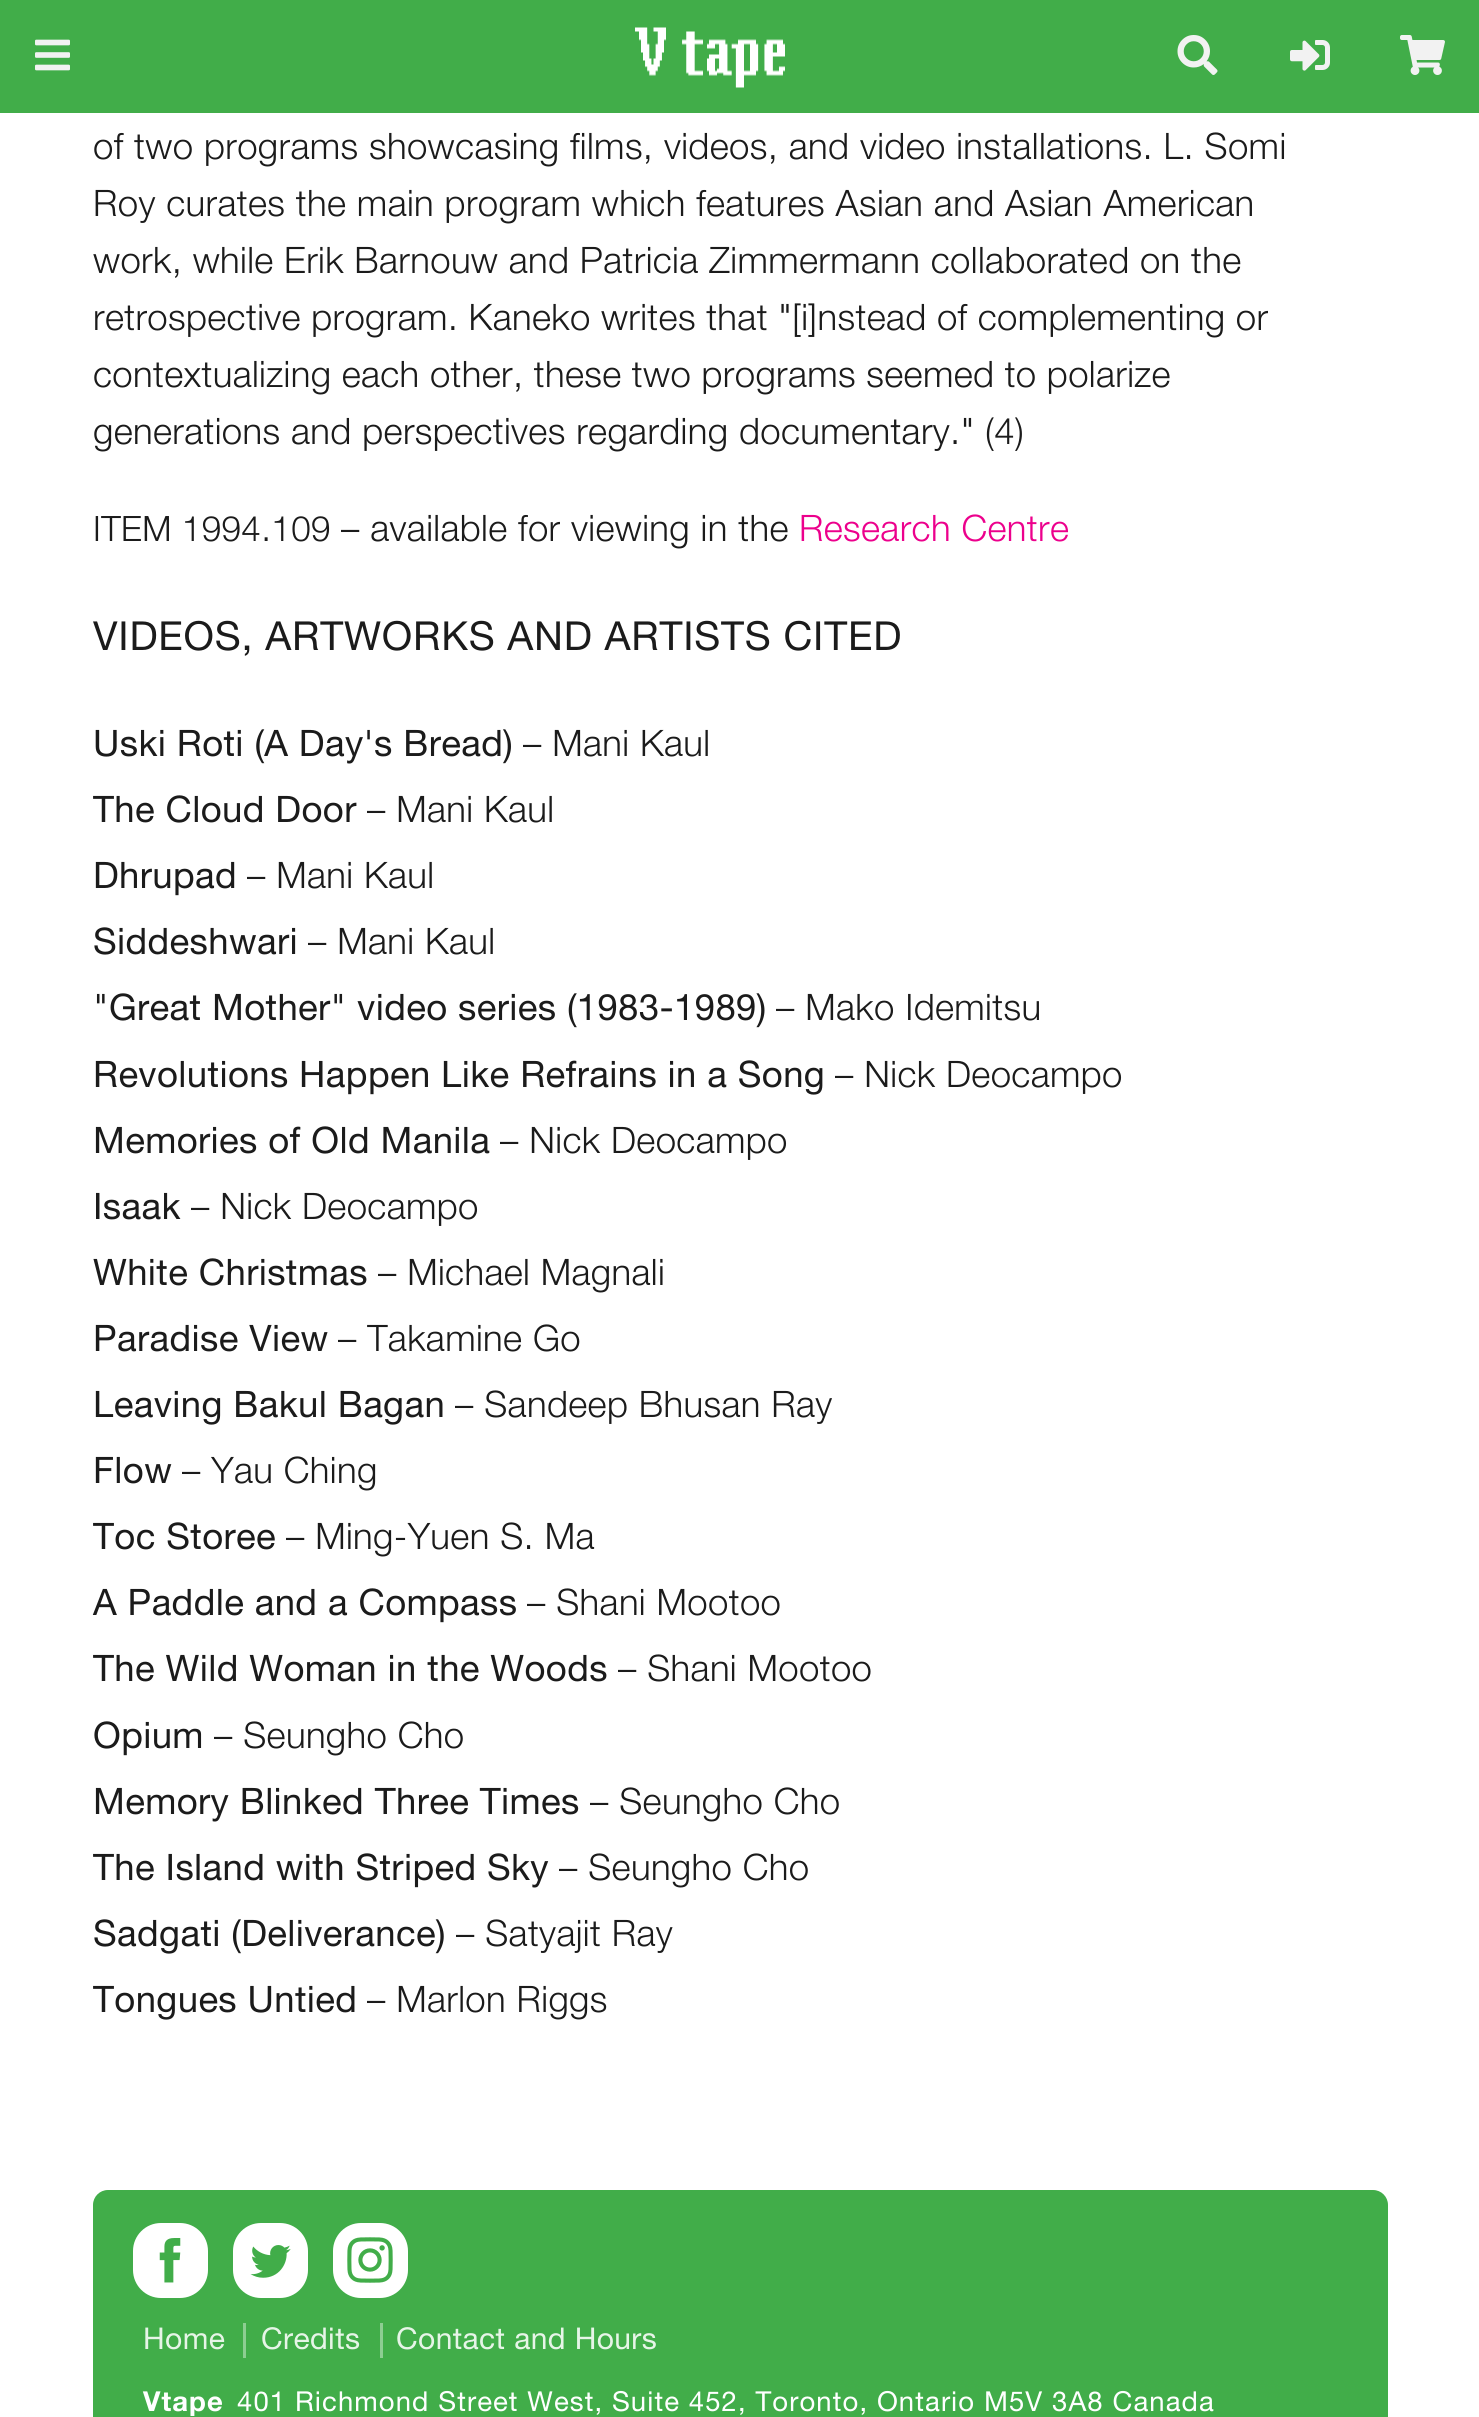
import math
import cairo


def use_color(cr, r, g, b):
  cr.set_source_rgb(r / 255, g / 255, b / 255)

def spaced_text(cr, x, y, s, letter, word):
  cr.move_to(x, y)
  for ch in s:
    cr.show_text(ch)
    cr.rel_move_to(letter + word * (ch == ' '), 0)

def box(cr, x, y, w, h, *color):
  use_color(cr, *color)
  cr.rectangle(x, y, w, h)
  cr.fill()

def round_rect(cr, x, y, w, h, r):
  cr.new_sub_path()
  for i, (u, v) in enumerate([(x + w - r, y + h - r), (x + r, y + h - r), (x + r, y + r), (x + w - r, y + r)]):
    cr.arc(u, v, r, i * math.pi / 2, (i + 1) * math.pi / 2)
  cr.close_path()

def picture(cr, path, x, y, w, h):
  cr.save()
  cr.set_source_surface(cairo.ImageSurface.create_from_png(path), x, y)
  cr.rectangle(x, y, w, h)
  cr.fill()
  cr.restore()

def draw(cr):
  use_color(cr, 255, 255, 255)
  cr.paint()
  box(cr, 0, 0, 1479, 113, 65, 173, 73)
  picture(cr, "img_01.png", 35, 39, 35, 32)
  picture(cr, "img_02.png", 635, 27, 150, 61)
  picture(cr, "img_03.png", 1177, 35, 41, 40)
  picture(cr, "img_04.png", 1290, 40, 40, 31)
  picture(cr, "img_05.png", 1400, 35, 45, 40)
  round_rect(cr, 93, 2190, 1295, 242, 15)
  cr.fill()
  use_color(cr, 255, 255, 255)
  round_rect(cr, 133, 2223, 75, 75, 28)
  cr.fill()
  picture(cr, "img_06.png", 159, 2238, 22, 45)
  round_rect(cr, 233, 2223, 75, 75, 28)
  cr.fill()
  picture(cr, "img_07.png", 250, 2245, 41, 33)
  round_rect(cr, 333, 2223, 75, 75, 28)
  cr.fill()
  picture(cr, "img_08.png", 347, 2237, 46, 46)
  box(cr, 243, 2323, 3, 35, 141, 206, 146)
  box(cr, 380, 2323, 3, 35, 141, 206, 146)
  cr.select_font_face("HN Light")
  cr.set_font_size(36.5)
  use_color(cr, 27, 27, 27)
  spaced_text(cr, 93, 159, "of two programs showcasing films, videos, and video installations. L. Somi", 0.4, 0)
  spaced_text(cr, 93, 216, "Roy curates the main program which features Asian and Asian American", 0.4, 0)
  spaced_text(cr, 93, 273, "work, while Erik Barnouw and Patricia Zimmermann collaborated on the", 0.4, -0.1)
  spaced_text(cr, 93, 330, "retrospective program. Kaneko writes that \"[i]nstead of complementing or", 0.4, -0.25)
  spaced_text(cr, 93, 387, "contextualizing each other, these two programs seemed to polarize", 0.4, -0.25)
  spaced_text(cr, 93, 444, "generations and perspectives regarding documentary.\" (4)", 0.4, 0)
  cr.set_font_size(35)
  spaced_text(cr, 93, 541, "ITEM 1994.109", 0.4, 0)
  cr.set_font_size(36.5)
  spaced_text(cr, 341, 541, "– available for viewing in the", 0.4, 0)
  use_color(cr, 236, 0, 140)
  spaced_text(cr, 799, 541, "Research Centre", 0.4, 0)
  cr.select_font_face("HN")
  cr.set_font_size(40)
  use_color(cr, 27, 27, 27)
  spaced_text(cr, 93, 650, "VIDEOS, ARTWORKS AND ARTISTS CITED", 0.8, 0)
  cr.set_font_size(36.5)
  spaced_text(cr, 93, 756, "Uski Roti (A Day's Bread)", 0.4, 0)
  cr.select_font_face("HN Light")
  spaced_text(cr, 523, 756, "– Mani Kaul", 0.4, 0)
  cr.select_font_face("HN")
  spaced_text(cr, 93, 822, "The Cloud Door", 0.4, 0)
  cr.select_font_face("HN Light")
  spaced_text(cr, 367, 822, "– Mani Kaul", 0.4, 0)
  cr.select_font_face("HN")
  spaced_text(cr, 93, 888, "Dhrupad", 0.4, 0)
  cr.select_font_face("HN Light")
  spaced_text(cr, 247, 888, "– Mani Kaul", 0.4, 0)
  cr.select_font_face("HN")
  spaced_text(cr, 93, 954, "Siddeshwari", 0.4, 0)
  cr.select_font_face("HN Light")
  spaced_text(cr, 308, 954, "– Mani Kaul", 0.4, 0)
  cr.select_font_face("HN")
  spaced_text(cr, 93, 1020, "\"Great Mother\" video series (1983-1989)", 0.4, 0)
  cr.select_font_face("HN Light")
  spaced_text(cr, 776, 1020, "– Mako Idemitsu", 0.4, 0)
  cr.select_font_face("HN")
  spaced_text(cr, 93, 1087, "Revolutions Happen Like Refrains in a Song", 0.4, 0)
  cr.select_font_face("HN Light")
  spaced_text(cr, 835, 1087, "– Nick Deocampo", 0.4, 0)
  cr.select_font_face("HN")
  spaced_text(cr, 93, 1153, "Memories of Old Manila", 0.4, 0)
  cr.select_font_face("HN Light")
  spaced_text(cr, 500, 1153, "– Nick Deocampo", 0.4, 0)
  cr.select_font_face("HN")
  spaced_text(cr, 93, 1219, "Isaak", 0.4, 0)
  cr.select_font_face("HN Light")
  spaced_text(cr, 191, 1219, "– Nick Deocampo", 0.4, 0)
  cr.select_font_face("HN")
  spaced_text(cr, 93, 1285, "White Christmas", 0.4, 0)
  cr.select_font_face("HN Light")
  spaced_text(cr, 378, 1285, "– Michael Magnali", 0.4, 0)
  cr.select_font_face("HN")
  spaced_text(cr, 93, 1351, "Paradise View", 0.4, 0)
  cr.select_font_face("HN Light")
  spaced_text(cr, 338, 1351, "– Takamine Go", 0.4, 0)
  cr.select_font_face("HN")
  spaced_text(cr, 93, 1417, "Leaving Bakul Bagan", 0.4, 0)
  cr.select_font_face("HN Light")
  spaced_text(cr, 455, 1417, "– Sandeep Bhusan Ray", 0.4, 0)
  cr.select_font_face("HN")
  spaced_text(cr, 93, 1483, "Flow", 0.4, 0)
  cr.select_font_face("HN Light")
  spaced_text(cr, 182, 1483, "– Yau Ching", 0.4, 0)
  cr.select_font_face("HN")
  spaced_text(cr, 93, 1549, "Toc Storee", 0.4, 0)
  cr.select_font_face("HN Light")
  spaced_text(cr, 286, 1549, "– Ming-Yuen S. Ma", 0.4, 0)
  cr.select_font_face("HN")
  spaced_text(cr, 93, 1615, "A Paddle and a Compass", 0.4, 0)
  cr.select_font_face("HN Light")
  spaced_text(cr, 527, 1615, "– Shani Mootoo", 0.4, 0)
  cr.select_font_face("HN")
  spaced_text(cr, 93, 1681, "The Wild Woman in the Woods", 0.4, 0)
  cr.select_font_face("HN Light")
  spaced_text(cr, 618, 1681, "– Shani Mootoo", 0.4, 0)
  cr.select_font_face("HN")
  spaced_text(cr, 93, 1748, "Opium", 0.4, 0)
  cr.select_font_face("HN Light")
  spaced_text(cr, 214, 1748, "– Seungho Cho", 0.4, 0)
  cr.select_font_face("HN")
  spaced_text(cr, 93, 1814, "Memory Blinked Three Times", 0.4, 0)
  cr.select_font_face("HN Light")
  spaced_text(cr, 590, 1814, "– Seungho Cho", 0.4, 0)
  cr.select_font_face("HN")
  spaced_text(cr, 93, 1880, "The Island with Striped Sky", 0.4, 0)
  cr.select_font_face("HN Light")
  spaced_text(cr, 559, 1880, "– Seungho Cho", 0.4, 0)
  cr.select_font_face("HN")
  spaced_text(cr, 93, 1946, "Sadgati (Deliverance)", 0.4, 0)
  cr.select_font_face("HN Light")
  spaced_text(cr, 456, 1946, "– Satyajit Ray", 0.4, 0)
  cr.select_font_face("HN")
  spaced_text(cr, 93, 2012, "Tongues Untied", 0.4, 0)
  cr.select_font_face("HN Light")
  spaced_text(cr, 367, 2012, "– Marlon Riggs", 0.4, 0)
  cr.select_font_face("HN")
  cr.set_font_size(30)
  use_color(cr, 230, 245, 231)
  spaced_text(cr, 143, 2349, "Home", 0.4, 0)
  spaced_text(cr, 261, 2349, "Credits", 0.4, 0)
  spaced_text(cr, 396, 2349, "Contact and Hours", 0.4, 0)
  cr.select_font_face("HN", cairo.FONT_SLANT_NORMAL, cairo.FONT_WEIGHT_BOLD)
  cr.set_font_size(27.5)
  use_color(cr, 255, 255, 255)
  spaced_text(cr, 143, 2411, "Vtape", 1.1, 0)
  cr.select_font_face("HN")
  spaced_text(cr, 237, 2411, "401 Richmond Street West, Suite 452", 1.1, 0)
  spaced_text(cr, 738, 2411, ", Toronto, Ontario M5V 3A8 Canada", 1.1, 0)


surface = cairo.ImageSurface(cairo.FORMAT_RGB24, 1479, 2417)
cr = cairo.Context(surface)
options = cairo.FontOptions()
options.set_hint_metrics(cairo.HINT_METRICS_OFF)
options.set_hint_style(cairo.HINT_STYLE_NONE)
cr.set_font_options(options)
cr.set_miter_limit(4)
draw(cr)
surface.write_to_png("out.png")
